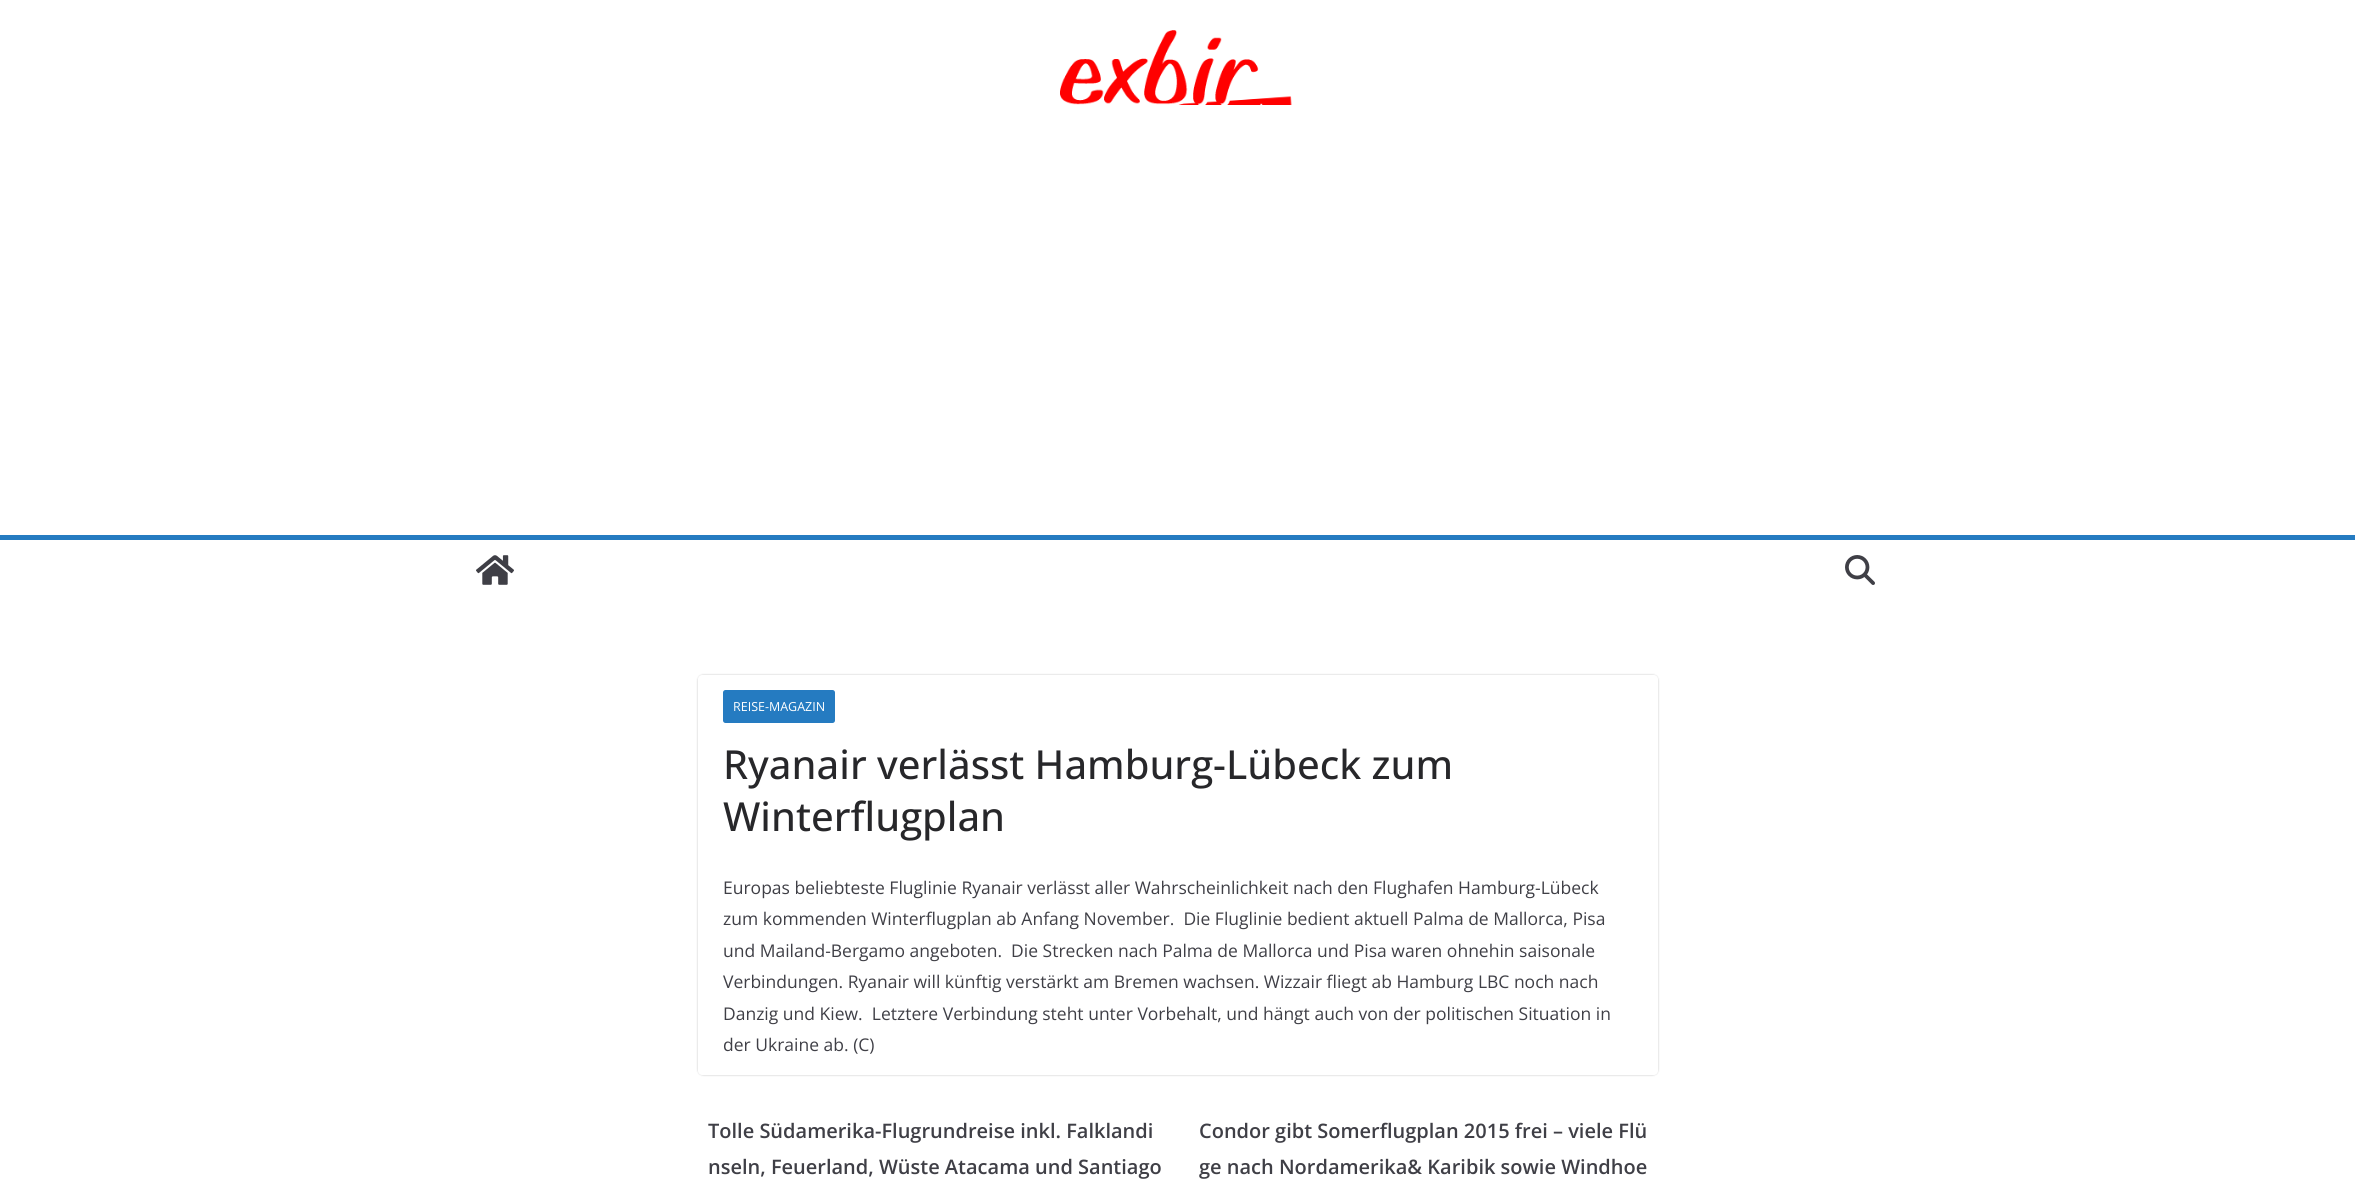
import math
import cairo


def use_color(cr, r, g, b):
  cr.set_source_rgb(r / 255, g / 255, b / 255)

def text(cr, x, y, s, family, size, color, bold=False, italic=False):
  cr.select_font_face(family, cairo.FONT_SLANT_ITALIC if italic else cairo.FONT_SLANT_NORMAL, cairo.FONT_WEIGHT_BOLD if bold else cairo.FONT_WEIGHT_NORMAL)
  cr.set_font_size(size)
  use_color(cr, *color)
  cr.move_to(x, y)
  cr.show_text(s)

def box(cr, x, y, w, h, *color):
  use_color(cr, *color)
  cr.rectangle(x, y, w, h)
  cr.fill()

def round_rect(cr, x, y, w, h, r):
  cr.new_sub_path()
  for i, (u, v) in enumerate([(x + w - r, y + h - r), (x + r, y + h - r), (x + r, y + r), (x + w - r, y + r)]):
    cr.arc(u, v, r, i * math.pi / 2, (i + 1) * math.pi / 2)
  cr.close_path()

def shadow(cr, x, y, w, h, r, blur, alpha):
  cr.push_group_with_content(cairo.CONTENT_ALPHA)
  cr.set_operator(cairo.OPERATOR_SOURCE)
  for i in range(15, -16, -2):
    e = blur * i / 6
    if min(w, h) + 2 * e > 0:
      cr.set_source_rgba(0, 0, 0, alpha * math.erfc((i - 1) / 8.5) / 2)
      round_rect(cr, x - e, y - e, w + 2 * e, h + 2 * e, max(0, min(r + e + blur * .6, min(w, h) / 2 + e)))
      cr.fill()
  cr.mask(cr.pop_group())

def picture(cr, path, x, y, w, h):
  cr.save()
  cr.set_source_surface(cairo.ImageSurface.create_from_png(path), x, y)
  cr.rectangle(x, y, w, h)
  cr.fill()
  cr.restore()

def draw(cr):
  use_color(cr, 255, 255, 255)
  cr.paint()
  picture(cr, "img_01.png", 1060, 30, 232, 75)
  box(cr, 0, 535, 2355, 5, 37, 123, 193)
  picture(cr, "img_02.png", 476, 555, 38, 30)
  picture(cr, "img_03.png", 1845, 555, 30, 30)
  cr.save()
  cr.set_fill_rule(cairo.FILL_RULE_EVEN_ODD)
  cr.new_path()
  cr.move_to(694, 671)
  cr.line_to(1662, 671)
  cr.line_to(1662, 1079)
  cr.line_to(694, 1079)
  cr.close_path()
  cr.move_to(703, 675)
  cr.line_to(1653, 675)
  cr.curve_to(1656, 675, 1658, 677, 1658, 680)
  cr.line_to(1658, 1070)
  cr.curve_to(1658, 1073, 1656, 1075, 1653, 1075)
  cr.line_to(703, 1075)
  cr.curve_to(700, 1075, 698, 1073, 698, 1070)
  cr.line_to(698, 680)
  cr.curve_to(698, 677, 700, 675, 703, 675)
  cr.close_path()
  cr.clip()
  use_color(cr, 0, 0, 0)
  shadow(cr, 698, 675, 960, 400, 5, 1, 0.24)
  cr.restore()
  round_rect(cr, 723, 690, 112, 33, 2.5)
  cr.fill()
  text(cr, 733, 711, "REISE-MAGAZIN", "Open Sans", 12.5, (255, 255, 255))
  text(cr, 723, 779, "Ryanair verlässt Hamburg-Lübeck zum", "Open Sans Medium", 40, (39, 39, 42))
  text(cr, 723, 831, "Winterflugplan", "Open Sans Medium", 40, (39, 39, 42))
  text(cr, 723, 894, "Europas beliebteste Fluglinie Ryanair verlässt aller Wahrscheinlichkeit nach den Flughafen Hamburg-Lübeck", "Open Sans", 17.5, (63, 63, 70))
  text(cr, 723, 925, "zum kommenden Winterflugplan ab Anfang November.  Die Fluglinie bedient aktuell Palma de Mallorca, Pisa", "Open Sans", 17.5, (63, 63, 70))
  text(cr, 723, 957, "und Mailand-Bergamo angeboten.  Die Strecken nach Palma de Mallorca und Pisa waren ohnehin saisonale", "Open Sans", 17.5, (63, 63, 70))
  text(cr, 723, 988, "Verbindungen. Ryanair will künftig verstärkt am Bremen wachsen. Wizzair fliegt ab Hamburg LBC noch nach", "Open Sans", 17.5, (63, 63, 70))
  text(cr, 723, 1020, "Danzig und Kiew.  Letztere Verbindung steht unter Vorbehalt, und hängt auch von der politischen Situation in", "Open Sans", 17.5, (63, 63, 70))
  text(cr, 723, 1051, "der Ukraine ab. (C)", "Open Sans", 17.5, (63, 63, 70))
  text(cr, 708, 1138, "Tolle Südamerika-Flugrundreise inkl. Falklandi", "Open Sans SemiBold", 20, (63, 63, 70))
  text(cr, 708, 1174, "nseln, Feuerland, Wüste Atacama und Santiago", "Open Sans SemiBold", 20, (63, 63, 70))
  text(cr, 1199, 1138, "Condor gibt Somerflugplan 2015 frei – viele Flü", "Open Sans SemiBold", 20, (63, 63, 70))
  text(cr, 1199, 1174, "ge nach Nordamerika& Karibik sowie Windhoe", "Open Sans SemiBold", 20, (63, 63, 70))


surface = cairo.ImageSurface(cairo.FORMAT_RGB24, 2355, 1196)
cr = cairo.Context(surface)
options = cairo.FontOptions()
options.set_hint_metrics(cairo.HINT_METRICS_OFF)
options.set_hint_style(cairo.HINT_STYLE_NONE)
cr.set_font_options(options)
cr.set_miter_limit(4)
draw(cr)
surface.write_to_png("out.png")
